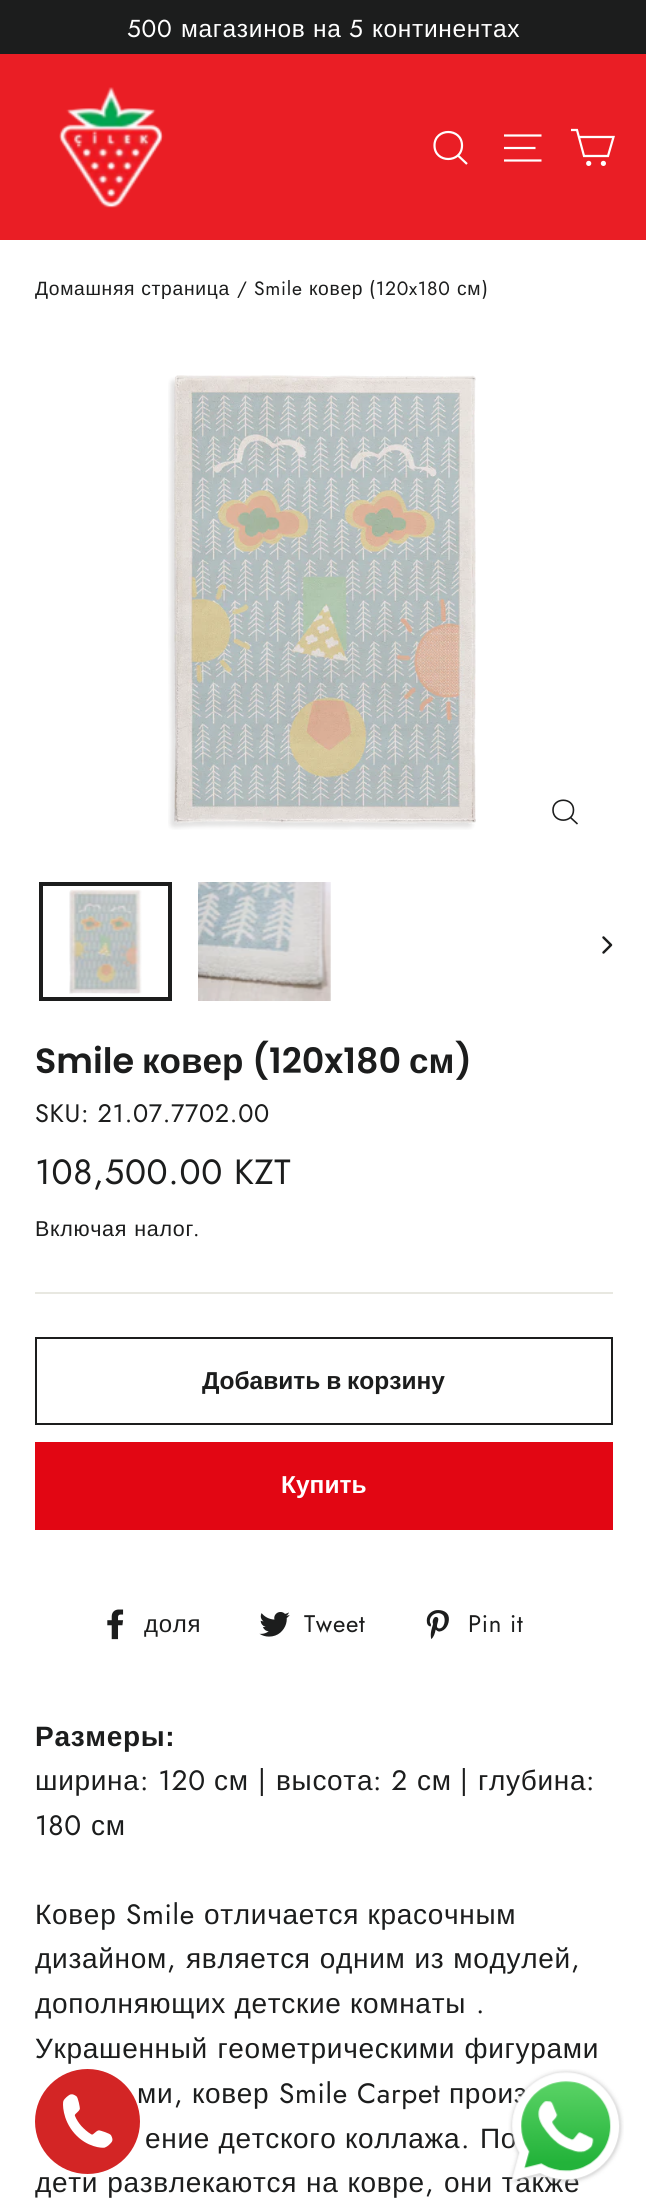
import math
import cairo


def use_color(cr, r, g, b):
  cr.set_source_rgb(r / 255, g / 255, b / 255)

def text(cr, x, y, s, family, size, color, bold=False, italic=False):
  cr.select_font_face(family, cairo.FONT_SLANT_ITALIC if italic else cairo.FONT_SLANT_NORMAL, cairo.FONT_WEIGHT_BOLD if bold else cairo.FONT_WEIGHT_NORMAL)
  cr.set_font_size(size)
  use_color(cr, *color)
  cr.move_to(x, y)
  cr.show_text(s)

def spaced_text(cr, x, y, s, letter, word):
  cr.move_to(x, y)
  for ch in s:
    cr.show_text(ch)
    cr.rel_move_to(letter + word * (ch == ' '), 0)

def box(cr, x, y, w, h, *color):
  use_color(cr, *color)
  cr.rectangle(x, y, w, h)
  cr.fill()

def picture(cr, path, x, y, w, h):
  cr.save()
  cr.set_source_surface(cairo.ImageSurface.create_from_png(path), x, y)
  cr.rectangle(x, y, w, h)
  cr.fill()
  cr.restore()

def draw(cr):
  use_color(cr, 255, 255, 255)
  cr.paint()
  box(cr, 0, 0, 646, 54, 28, 29, 29)
  box(cr, 0, 54, 646, 186, 234, 30, 37)
  picture(cr, "img_01.png", 59, 87, 105, 121)
  cr.new_path()
  cr.move_to(462, 145.5)
  cr.curve_to(462, 163.5, 434.5, 163.5, 434.5, 145.5)
  cr.curve_to(434.5, 127.5, 462, 127.5, 462, 145.5)
  cr.close_path()
  cr.move_to(467, 164)
  cr.line_to(458, 155.5)
  use_color(cr, 255, 255, 255)
  cr.set_line_width(2.2)
  cr.stroke()
  cr.new_path()
  cr.move_to(504, 135.5)
  cr.line_to(541.5, 135.5)
  cr.move_to(504, 148)
  cr.line_to(535.5, 148)
  cr.move_to(504, 160.5)
  cr.line_to(541.5, 160.5)
  cr.stroke()
  cr.new_path()
  cr.move_to(579, 137)
  cr.line_to(613.5, 137)
  cr.line_to(608, 156)
  cr.line_to(584, 156)
  cr.line_to(577, 130)
  cr.line_to(571, 130)
  cr.stroke()
  cr.arc(588.7, 163.4, 1.5, 0, 2 * math.pi)
  cr.fill_preserve()
  cr.stroke()
  cr.arc(603.4, 163.4, 1.5, 0, 2 * math.pi)
  cr.fill_preserve()
  cr.stroke()
  picture(cr, "img_02.png", 168, 375, 308, 455)
  cr.new_path()
  cr.move_to(573.5, 810)
  cr.curve_to(573.5, 823.5, 553, 823.5, 553, 810)
  cr.curve_to(553, 797, 573.5, 797, 573.5, 810)
  cr.close_path()
  cr.move_to(577.5, 824)
  cr.line_to(570.5, 817.5)
  use_color(cr, 28, 29, 29)
  cr.set_line_width(1.6)
  cr.stroke()
  picture(cr, "img_03.png", 69, 889, 73, 105)
  cr.rectangle(41, 884, 129, 115)
  cr.set_line_width(4)
  cr.stroke()
  picture(cr, "img_04.png", 198, 882, 133, 119)
  picture(cr, "img_05.png", 602, 936, 11, 18)
  box(cr, 35, 1292, 578, 2, 232, 232, 225)
  cr.rectangle(36, 1338, 576, 86)
  use_color(cr, 28, 29, 29)
  cr.set_line_width(2)
  cr.stroke()
  box(cr, 35, 1442, 578, 88, 226, 6, 19)
  picture(cr, "img_06.png", 107, 1609, 17, 31)
  picture(cr, "img_07.png", 259, 1612, 31, 25)
  picture(cr, "img_08.png", 426, 1610, 23, 29)
  cr.select_font_face("Jost")
  cr.set_font_size(24.5)
  use_color(cr, 255, 255, 255)
  spaced_text(cr, 127, 37, "500", 0.7, 0)
  cr.select_font_face("Liberation Sans")
  spaced_text(cr, 181, 37, "магазинов на", 0.7, 0)
  cr.select_font_face("Jost")
  spaced_text(cr, 349, 37, "5", 0.7, 0)
  cr.select_font_face("Liberation Sans")
  spaced_text(cr, 372, 37, "континентах", 0.7, 0)
  cr.set_font_size(19.25)
  use_color(cr, 28, 29, 29)
  spaced_text(cr, 35, 295, "Домашняя страница", 0.7, 0)
  cr.select_font_face("Jost")
  spaced_text(cr, 237, 295, "/ Smile", 0.7, 0)
  cr.select_font_face("Liberation Sans")
  spaced_text(cr, 309, 295, "ковер", 0.7, 0)
  cr.select_font_face("Jost")
  spaced_text(cr, 369, 295, "(120x180", 0.7, 0)
  cr.select_font_face("Liberation Sans")
  spaced_text(cr, 457, 295, "см", 0.7, 0)
  cr.select_font_face("Jost")
  spaced_text(cr, 482, 295, ")", 0.7, 0)
  text(cr, 35, 1073, "Smile", "Poppins SemiBold", 35, (28, 29, 29))
  text(cr, 142, 1073, "ковер", "Liberation Sans", 35, (28, 29, 29), bold=True)
  text(cr, 252, 1073, "(120x180", "Poppins SemiBold", 35, (28, 29, 29))
  text(cr, 409, 1073, "см", "Liberation Sans", 35, (28, 29, 29), bold=True)
  text(cr, 455, 1073, ")", "Poppins SemiBold", 35, (28, 29, 29))
  cr.select_font_face("Jost")
  cr.set_font_size(25.25)
  spaced_text(cr, 35, 1122, "SKU: 21.07.7702.00", 0.7, 0)
  cr.set_font_size(35)
  spaced_text(cr, 35, 1184, "108,500.00 KZT", 0.7, 0)
  cr.select_font_face("Liberation Sans")
  cr.set_font_size(21.5)
  spaced_text(cr, 35, 1236, "Включая налог", 0.7, 0.5)
  cr.select_font_face("Jost")
  spaced_text(cr, 193, 1236, ".", 0.7, 0)
  cr.select_font_face("Liberation Sans", cairo.FONT_SLANT_NORMAL, cairo.FONT_WEIGHT_BOLD)
  cr.set_font_size(24.5)
  spaced_text(cr, 202, 1389, "Добавить в корзину", 0, -1)
  text(cr, 281, 1493, "Купить", "Liberation Sans", 24.5, (255, 255, 255), bold=True)
  cr.select_font_face("Liberation Sans")
  cr.set_font_size(24)
  use_color(cr, 28, 29, 29)
  spaced_text(cr, 144, 1632, "доля", 0.7, 0)
  cr.select_font_face("Jost")
  spaced_text(cr, 304, 1632, "Tweet", 0.7, 0)
  spaced_text(cr, 468, 1632, "Pin it", 0.7, 0)
  cr.select_font_face("Liberation Sans", cairo.FONT_SLANT_NORMAL, cairo.FONT_WEIGHT_BOLD)
  cr.set_font_size(28)
  spaced_text(cr, 35, 1746, "Размеры:", 0.7, 0)
  cr.select_font_face("Liberation Sans")
  spaced_text(cr, 35, 1790, "ширина", 0.7, 0)
  cr.select_font_face("Jost")
  spaced_text(cr, 140, 1790, ": 120", 0.7, 0)
  cr.select_font_face("Liberation Sans")
  spaced_text(cr, 214, 1790, "см", 0.7, 0)
  cr.select_font_face("Jost")
  spaced_text(cr, 258, 1790, "|", 0.7, 0)
  cr.select_font_face("Liberation Sans")
  spaced_text(cr, 276, 1790, "высота", 0.7, 0)
  cr.select_font_face("Jost")
  spaced_text(cr, 373, 1790, ": 2", 0.7, 0)
  cr.select_font_face("Liberation Sans")
  spaced_text(cr, 417, 1790, "см", 0.7, 0)
  cr.select_font_face("Jost")
  spaced_text(cr, 460, 1790, "|", 0.7, 0)
  cr.select_font_face("Liberation Sans")
  spaced_text(cr, 478, 1790, "глубина", 0.7, 0)
  cr.select_font_face("Jost")
  spaced_text(cr, 586, 1790, ":", 0.7, 0)
  spaced_text(cr, 35, 1835, "180", 0.7, 0)
  cr.select_font_face("Liberation Sans")
  spaced_text(cr, 91, 1835, "см", 0.7, 0)
  spaced_text(cr, 35, 1924, "Ковер", 0.7, 0)
  cr.select_font_face("Jost")
  spaced_text(cr, 126, 1924, "Smile", 0.7, 0)
  cr.select_font_face("Liberation Sans")
  spaced_text(cr, 204, 1924, "отличается красочным", 0.7, 0)
  spaced_text(cr, 35, 1968, "дизайном", 0.7, 0)
  cr.select_font_face("Jost")
  spaced_text(cr, 167, 1968, ",", 0.7, 0)
  cr.select_font_face("Liberation Sans")
  spaced_text(cr, 186, 1968, "является одним из модулей", 0.7, 0.5)
  cr.select_font_face("Jost")
  spaced_text(cr, 571, 1968, ",", 0.7, 0)
  cr.select_font_face("Liberation Sans")
  spaced_text(cr, 35, 2013, "дополняющих детские комнаты", 0.7, 0)
  cr.select_font_face("Jost")
  spaced_text(cr, 476, 2013, ".", 0.7, 0)
  cr.select_font_face("Liberation Sans")
  spaced_text(cr, 35, 2058, "Украшенный геометрическими фигурами", 0.7, 1)
  spaced_text(cr, 137, 2103, "ми", 0.7, 0)
  cr.select_font_face("Jost")
  spaced_text(cr, 174, 2103, ",", 0.7, 0)
  cr.select_font_face("Liberation Sans")
  spaced_text(cr, 192, 2103, "ковер", 0.7, 0)
  cr.select_font_face("Jost")
  spaced_text(cr, 279, 2103, "Smile Carpet", 0.7, 0)
  cr.select_font_face("Liberation Sans")
  spaced_text(cr, 449, 2103, "произ", 0.7, 0)
  spaced_text(cr, 145, 2148, "ение детского коллажа", 0.7, 0)
  cr.select_font_face("Jost")
  spaced_text(cr, 461, 2148, ".", 0.7, 0)
  cr.select_font_face("Liberation Sans")
  spaced_text(cr, 480, 2148, "По", 0.7, 0)
  spaced_text(cr, 35, 2192, "дети развлекаются на ковре", 0.7, 0.5)
  cr.select_font_face("Jost")
  spaced_text(cr, 425, 2192, ",", 0.7, 0)
  cr.select_font_face("Liberation Sans")
  spaced_text(cr, 444, 2192, "они также", 0.7, 0.5)
  use_color(cr, 211, 37, 37)
  cr.new_path()
  cr.arc(87.5, 2121.5, 52.5, 0, 2 * math.pi)
  cr.fill()
  picture(cr, "img_09.png", 63, 2094, 50, 54)
  picture(cr, "img_10.png", 508, 2069, 116, 116)


surface = cairo.ImageSurface(cairo.FORMAT_RGB24, 646, 2207)
cr = cairo.Context(surface)
options = cairo.FontOptions()
options.set_hint_metrics(cairo.HINT_METRICS_OFF)
options.set_hint_style(cairo.HINT_STYLE_NONE)
cr.set_font_options(options)
cr.set_miter_limit(4)
draw(cr)
surface.write_to_png("out.png")
